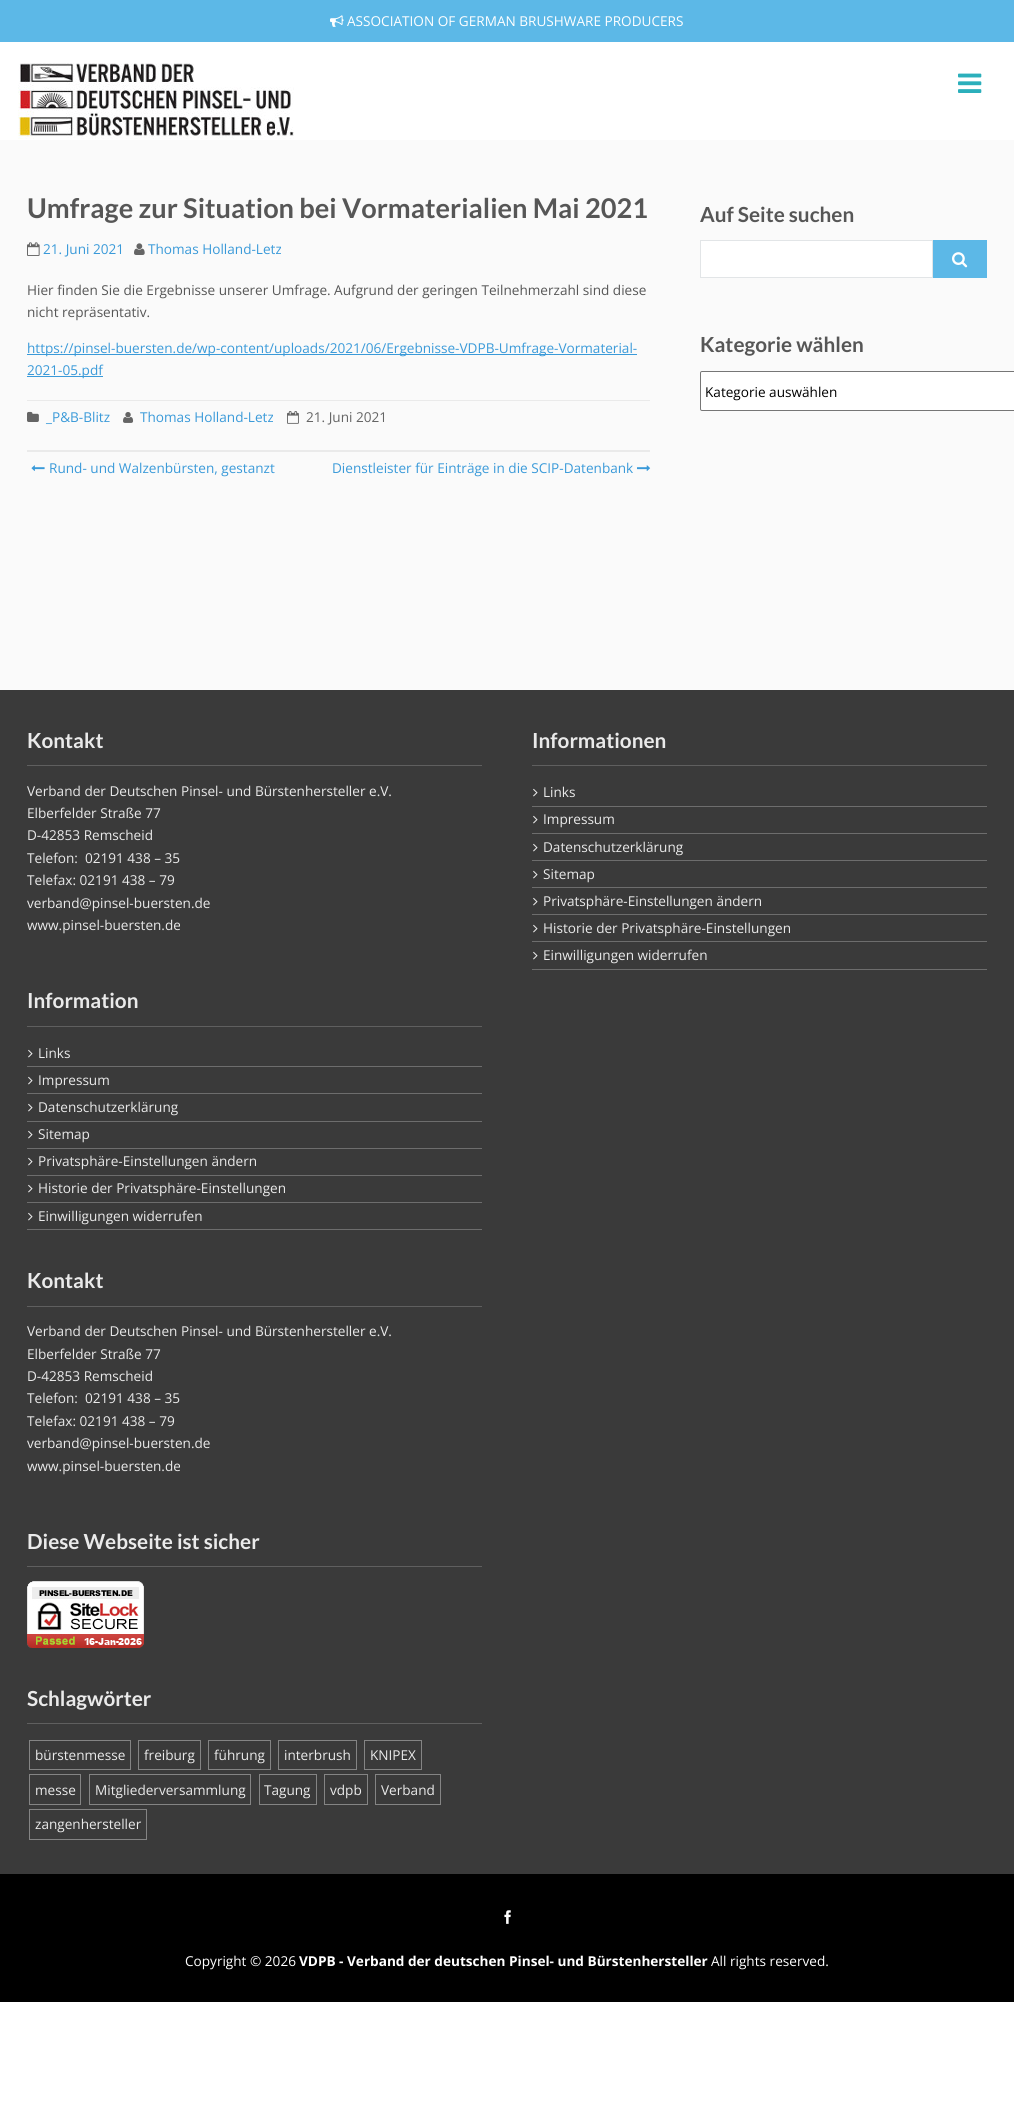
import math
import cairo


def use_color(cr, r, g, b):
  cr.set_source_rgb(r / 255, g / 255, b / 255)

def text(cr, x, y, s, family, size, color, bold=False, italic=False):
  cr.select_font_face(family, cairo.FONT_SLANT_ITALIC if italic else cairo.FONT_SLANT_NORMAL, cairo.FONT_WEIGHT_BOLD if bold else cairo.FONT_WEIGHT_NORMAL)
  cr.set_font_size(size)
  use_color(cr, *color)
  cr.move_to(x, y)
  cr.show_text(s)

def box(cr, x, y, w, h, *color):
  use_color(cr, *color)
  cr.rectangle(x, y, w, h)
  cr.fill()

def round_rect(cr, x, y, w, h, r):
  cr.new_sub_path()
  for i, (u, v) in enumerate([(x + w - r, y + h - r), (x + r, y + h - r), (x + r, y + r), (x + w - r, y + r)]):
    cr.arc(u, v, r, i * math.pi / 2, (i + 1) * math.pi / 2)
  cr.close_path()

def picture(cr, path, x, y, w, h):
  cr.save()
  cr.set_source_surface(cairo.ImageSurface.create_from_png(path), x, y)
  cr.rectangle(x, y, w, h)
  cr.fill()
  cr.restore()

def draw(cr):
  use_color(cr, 255, 255, 255)
  cr.paint()
  box(cr, 0, 0, 1014, 42, 92, 184, 231)
  picture(cr, "img_01.png", 330, 15, 14, 12)
  picture(cr, "img_02.png", 18, 63, 276, 76)
  picture(cr, "img_03.png", 958, 73, 24, 20)
  box(cr, 0, 140, 1014, 550, 250, 250, 250)
  box(cr, 27, 450, 623, 2, 234, 234, 234)
  picture(cr, "img_04.png", 27, 242, 13, 14)
  picture(cr, "img_05.png", 134, 243, 11, 12)
  box(cr, 27, 354, 610, 1, 58, 154, 217)
  box(cr, 27, 376, 76, 1, 58, 154, 217)
  box(cr, 27, 400, 623, 1, 234, 234, 234)
  picture(cr, "img_06.png", 27, 411, 12, 11)
  picture(cr, "img_07.png", 123, 412, 11, 11)
  picture(cr, "img_08.png", 287, 411, 12, 13)
  picture(cr, "img_09.png", 31, 465, 14, 6)
  picture(cr, "img_10.png", 637, 465, 14, 6)
  use_color(cr, 255, 255, 255)
  cr.rectangle(700.5, 240.5, 232, 37)
  cr.fill_preserve()
  use_color(cr, 226, 229, 231)
  cr.set_line_width(1)
  cr.stroke()
  box(cr, 933, 240, 54, 38, 92, 184, 231)
  picture(cr, "img_11.png", 952, 252, 16, 16)
  use_color(cr, 255, 255, 255)
  round_rect(cr, 700.5, 371.5, 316, 39, 1.5)
  cr.fill_preserve()
  use_color(cr, 118, 118, 118)
  cr.stroke()
  box(cr, 0, 690, 1014, 1184, 58, 58, 58)
  box(cr, 27, 765, 455, 1, 95, 95, 95)
  box(cr, 27, 1026, 455, 1, 95, 95, 95)
  box(cr, 27, 1066, 455, 1, 109, 109, 109)
  picture(cr, "img_12.png", 28, 1049, 5, 9)
  box(cr, 27, 1093, 455, 1, 109, 109, 109)
  picture(cr, "img_12.png", 28, 1076, 5, 9)
  box(cr, 27, 1121, 455, 1, 109, 109, 109)
  picture(cr, "img_12.png", 28, 1103, 5, 9)
  box(cr, 27, 1148, 455, 1, 109, 109, 109)
  picture(cr, "img_12.png", 28, 1130, 5, 9)
  box(cr, 27, 1175, 455, 1, 109, 109, 109)
  picture(cr, "img_12.png", 28, 1157, 5, 9)
  box(cr, 27, 1202, 455, 1, 109, 109, 109)
  picture(cr, "img_12.png", 28, 1184, 5, 9)
  box(cr, 27, 1229, 455, 1, 109, 109, 109)
  picture(cr, "img_12.png", 28, 1212, 5, 9)
  box(cr, 27, 1306, 455, 1, 95, 95, 95)
  box(cr, 27, 1566, 455, 1, 95, 95, 95)
  picture(cr, "img_13.png", 27, 1581, 117, 67)
  box(cr, 27, 1723, 455, 1, 95, 95, 95)
  cr.rectangle(29.5, 1740.5, 101, 29)
  use_color(cr, 132, 132, 132)
  cr.stroke()
  cr.rectangle(138.5, 1740.5, 62, 29)
  cr.stroke()
  cr.rectangle(208.5, 1740.5, 62, 29)
  cr.stroke()
  cr.rectangle(278.5, 1740.5, 78, 29)
  cr.stroke()
  cr.rectangle(364.5, 1740.5, 57, 29)
  cr.stroke()
  cr.rectangle(29.5, 1774.5, 51, 30)
  cr.stroke()
  cr.rectangle(89.5, 1774.5, 161, 30)
  cr.stroke()
  cr.rectangle(259.5, 1774.5, 57, 30)
  cr.stroke()
  cr.rectangle(324.5, 1774.5, 43, 30)
  cr.stroke()
  cr.rectangle(375.5, 1774.5, 65, 30)
  cr.stroke()
  cr.rectangle(29.5, 1809.5, 117, 30)
  cr.stroke()
  box(cr, 532, 765, 455, 1, 95, 95, 95)
  box(cr, 532, 806, 455, 1, 109, 109, 109)
  picture(cr, "img_12.png", 533, 788, 5, 9)
  box(cr, 532, 833, 455, 1, 109, 109, 109)
  picture(cr, "img_12.png", 533, 815, 5, 9)
  box(cr, 532, 860, 455, 1, 109, 109, 109)
  picture(cr, "img_12.png", 533, 843, 5, 9)
  box(cr, 532, 887, 455, 1, 109, 109, 109)
  picture(cr, "img_12.png", 533, 870, 5, 9)
  box(cr, 532, 914, 455, 1, 109, 109, 109)
  picture(cr, "img_12.png", 533, 897, 5, 9)
  box(cr, 532, 941, 455, 1, 109, 109, 109)
  picture(cr, "img_12.png", 533, 924, 5, 9)
  box(cr, 532, 969, 455, 1, 109, 109, 109)
  picture(cr, "img_12.png", 533, 951, 5, 9)
  box(cr, 0, 1874, 1014, 128, 0, 0, 0)
  picture(cr, "img_14.png", 504, 1910, 7, 14)
  text(cr, 347, 26, "ASSOCIATION OF GERMAN BRUSHWARE PRODUCERS", "Open Sans", 13.6, (255, 255, 255))
  text(cr, 27, 218, "Umfrage zur Situation bei Vormaterialien Mai 2021", "Lato", 27.2, (86, 86, 86), bold=True)
  text(cr, 43, 254, "21. Juni 2021", "Open Sans", 13.6, (58, 154, 217))
  text(cr, 148, 254, "Thomas Holland-Letz", "Open Sans", 13.6, (58, 154, 217))
  text(cr, 27, 295, "Hier finden Sie die Ergebnisse unserer Umfrage. Aufgrund der geringen Teilnehmerzahl sind diese", "Open Sans", 13.6, (86, 86, 86))
  text(cr, 27, 317, "nicht repräsentativ.", "Open Sans", 13.6, (86, 86, 86))
  text(cr, 27, 353, "https://pinsel-buersten.de/wp-content/uploads/2021/06/Ergebnisse-VDPB-Umfrage-Vormaterial-", "Open Sans", 13.6, (58, 154, 217))
  text(cr, 27, 375, "2021-05.pdf", "Open Sans", 13.6, (58, 154, 217))
  text(cr, 46, 422, "_P&B-Blitz", "Open Sans", 13.6, (58, 154, 217))
  text(cr, 140, 422, "Thomas Holland-Letz", "Open Sans", 13.6, (58, 154, 217))
  text(cr, 306, 422, "21. Juni 2021", "Open Sans", 13.6, (101, 101, 101))
  text(cr, 49, 473, "Rund- und Walzenbürsten, gestanzt", "Open Sans", 13.6, (58, 154, 217))
  text(cr, 332, 473, "Dienstleister für Einträge in die SCIP-Datenbank", "Open Sans", 13.6, (58, 154, 217))
  text(cr, 700, 222, "Auf Seite suchen", "Lato", 20.75, (86, 86, 86), bold=True)
  text(cr, 700, 352, "Kategorie wählen", "Lato", 20.75, (86, 86, 86), bold=True)
  text(cr, 705, 397, "Kategorie auswählen", "Open Sans", 13.6, (0, 0, 0))
  text(cr, 27, 748, "Kontakt", "Lato", 20.75, (234, 234, 234), bold=True)
  text(cr, 27, 796, "Verband der Deutschen Pinsel- und Bürstenhersteller e.V.", "Open Sans", 13.6, (234, 234, 234))
  text(cr, 27, 818, "Elberfelder Straße 77", "Open Sans", 13.6, (234, 234, 234))
  text(cr, 27, 840, "D-42853 Remscheid", "Open Sans", 13.6, (234, 234, 234))
  text(cr, 27, 863, "Telefon:  02191 438 – 35", "Open Sans", 13.6, (234, 234, 234))
  text(cr, 27, 885, "Telefax: 02191 438 – 79", "Open Sans", 13.6, (234, 234, 234))
  text(cr, 27, 908, "verband@pinsel-buersten.de", "Open Sans", 13.6, (234, 234, 234))
  text(cr, 27, 930, "www.pinsel-buersten.de", "Open Sans", 13.6, (234, 234, 234))
  text(cr, 27, 1008, "Information", "Lato", 20.75, (234, 234, 234), bold=True)
  text(cr, 38, 1058, "Links", "Open Sans", 13.6, (234, 234, 234))
  text(cr, 38, 1085, "Impressum", "Open Sans", 13.6, (234, 234, 234))
  text(cr, 38, 1112, "Datenschutzerklärung", "Open Sans", 13.6, (234, 234, 234))
  text(cr, 38, 1139, "Sitemap", "Open Sans", 13.6, (234, 234, 234))
  text(cr, 38, 1166, "Privatsphäre-Einstellungen ändern", "Open Sans", 13.6, (234, 234, 234))
  text(cr, 38, 1193, "Historie der Privatsphäre-Einstellungen", "Open Sans", 13.6, (234, 234, 234))
  text(cr, 38, 1221, "Einwilligungen widerrufen", "Open Sans", 13.6, (234, 234, 234))
  text(cr, 27, 1288, "Kontakt", "Lato", 20.75, (234, 234, 234), bold=True)
  text(cr, 27, 1336, "Verband der Deutschen Pinsel- und Bürstenhersteller e.V.", "Open Sans", 13.6, (234, 234, 234))
  text(cr, 27, 1359, "Elberfelder Straße 77", "Open Sans", 13.6, (234, 234, 234))
  text(cr, 27, 1381, "D-42853 Remscheid", "Open Sans", 13.6, (234, 234, 234))
  text(cr, 27, 1403, "Telefon:  02191 438 – 35", "Open Sans", 13.6, (234, 234, 234))
  text(cr, 27, 1426, "Telefax: 02191 438 – 79", "Open Sans", 13.6, (234, 234, 234))
  text(cr, 27, 1448, "verband@pinsel-buersten.de", "Open Sans", 13.6, (234, 234, 234))
  text(cr, 27, 1471, "www.pinsel-buersten.de", "Open Sans", 13.6, (234, 234, 234))
  text(cr, 27, 1549, "Diese Webseite ist sicher", "Lato", 20.75, (234, 234, 234), bold=True)
  text(cr, 27, 1706, "Schlagwörter", "Lato", 20.75, (234, 234, 234), bold=True)
  text(cr, 35, 1760, "bürstenmesse", "Open Sans", 13.6, (234, 234, 234))
  text(cr, 144, 1760, "freiburg", "Open Sans", 13.6, (234, 234, 234))
  text(cr, 214, 1760, "führung", "Open Sans", 13.6, (234, 234, 234))
  text(cr, 284, 1760, "interbrush", "Open Sans", 13.6, (234, 234, 234))
  text(cr, 370, 1760, "KNIPEX", "Open Sans", 13.6, (234, 234, 234))
  text(cr, 35, 1795, "messe", "Open Sans", 13.6, (234, 234, 234))
  text(cr, 95, 1795, "Mitgliederversammlung", "Open Sans", 13.6, (234, 234, 234))
  text(cr, 264, 1795, "Tagung", "Open Sans", 13.6, (234, 234, 234))
  text(cr, 330, 1795, "vdpb", "Open Sans", 13.6, (234, 234, 234))
  text(cr, 381, 1795, "Verband", "Open Sans", 13.6, (234, 234, 234))
  text(cr, 35, 1829, "zangenhersteller", "Open Sans", 13.6, (234, 234, 234))
  text(cr, 532, 748, "Informationen", "Lato", 20.75, (234, 234, 234), bold=True)
  text(cr, 543, 797, "Links", "Open Sans", 13.6, (234, 234, 234))
  text(cr, 543, 824, "Impressum", "Open Sans", 13.6, (234, 234, 234))
  text(cr, 543, 852, "Datenschutzerklärung", "Open Sans", 13.6, (234, 234, 234))
  text(cr, 543, 879, "Sitemap", "Open Sans", 13.6, (234, 234, 234))
  text(cr, 543, 906, "Privatsphäre-Einstellungen ändern", "Open Sans", 13.6, (234, 234, 234))
  text(cr, 543, 933, "Historie der Privatsphäre-Einstellungen", "Open Sans", 13.6, (234, 234, 234))
  text(cr, 543, 960, "Einwilligungen widerrufen", "Open Sans", 13.6, (234, 234, 234))
  text(cr, 185, 1966, "Copyright © 2026", "Open Sans", 13.6, (255, 255, 255))
  text(cr, 299, 1966, "VDPB - Verband der deutschen Pinsel- und Bürstenhersteller", "Open Sans", 13.6, (255, 255, 255), bold=True)
  text(cr, 711, 1966, "All rights reserved.", "Open Sans", 13.6, (255, 255, 255))


surface = cairo.ImageSurface(cairo.FORMAT_RGB24, 1014, 2117)
cr = cairo.Context(surface)
options = cairo.FontOptions()
options.set_hint_metrics(cairo.HINT_METRICS_OFF)
options.set_hint_style(cairo.HINT_STYLE_NONE)
cr.set_font_options(options)
cr.set_miter_limit(4)
draw(cr)
surface.write_to_png("out.png")
